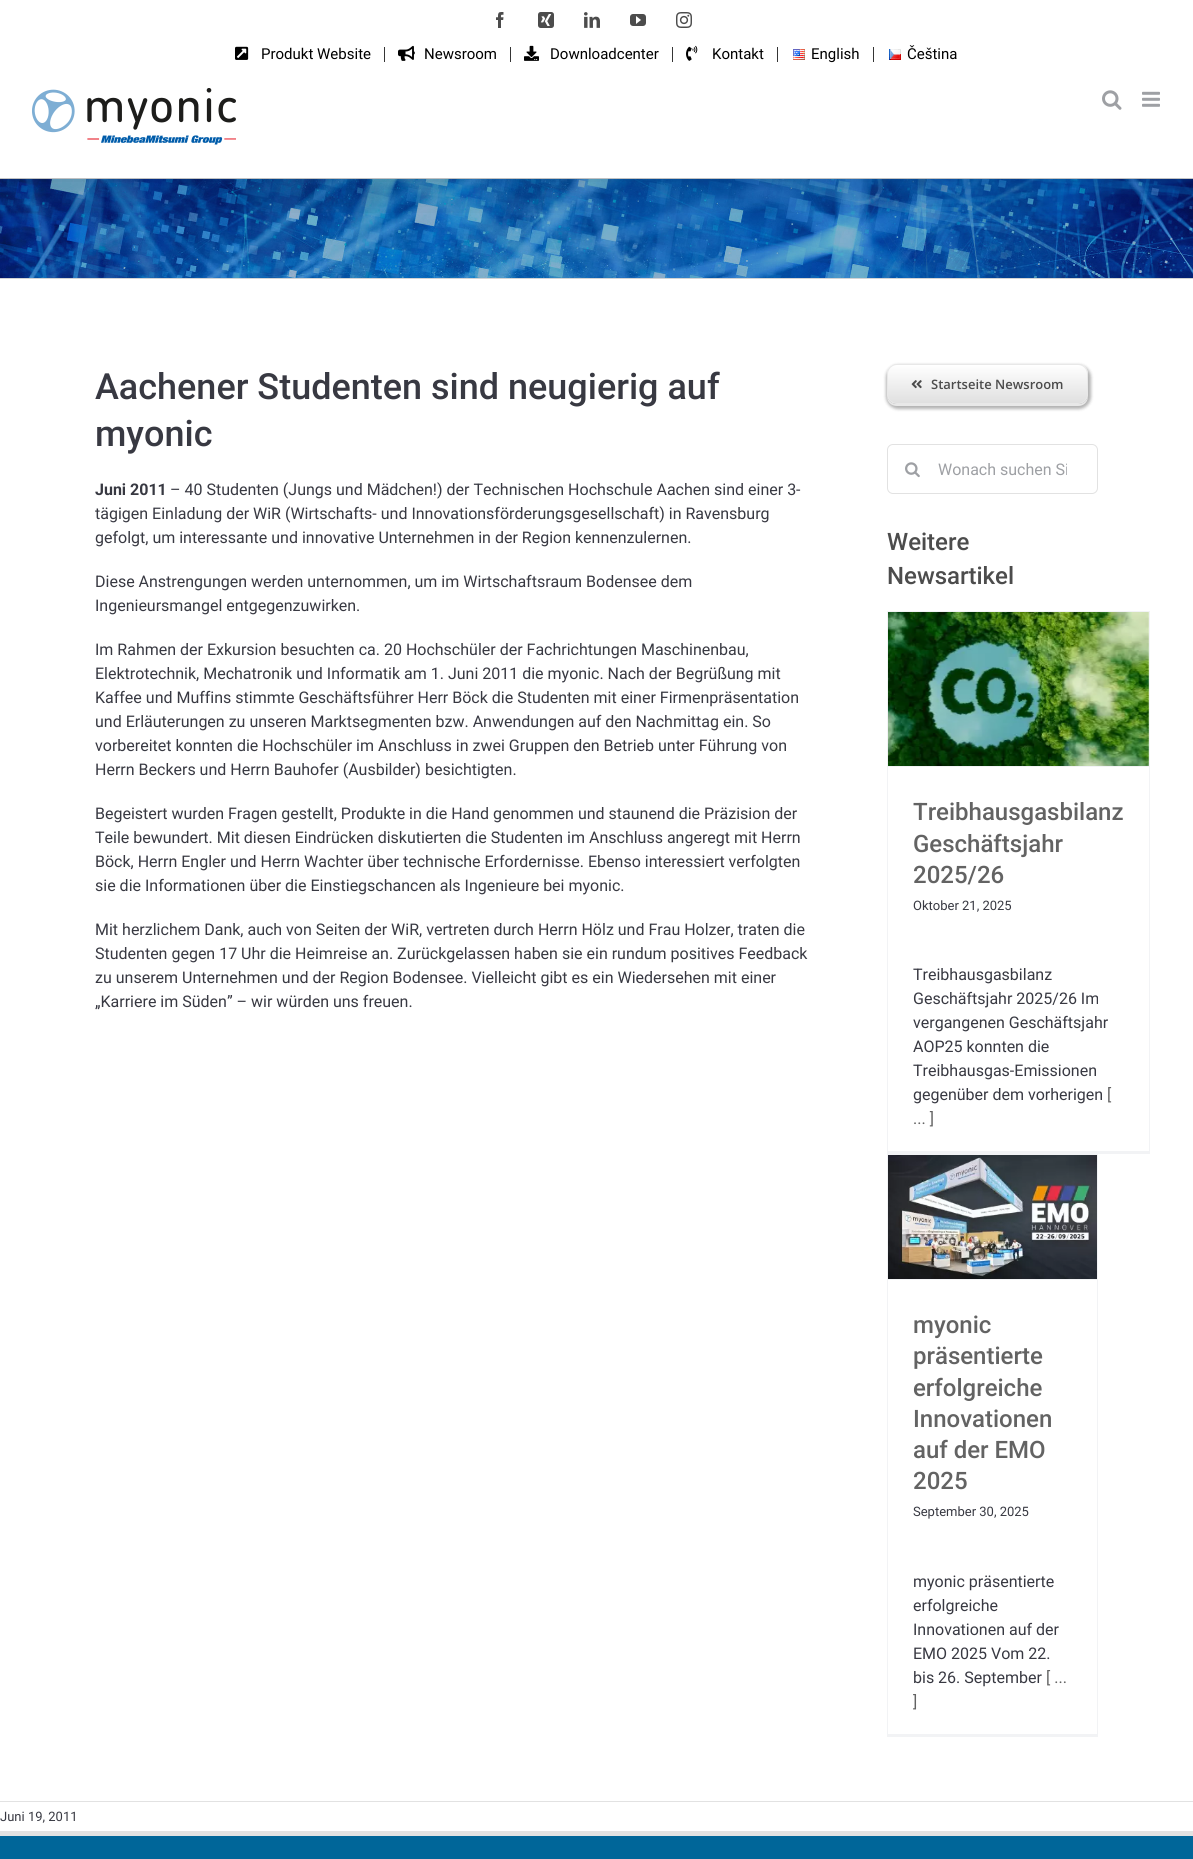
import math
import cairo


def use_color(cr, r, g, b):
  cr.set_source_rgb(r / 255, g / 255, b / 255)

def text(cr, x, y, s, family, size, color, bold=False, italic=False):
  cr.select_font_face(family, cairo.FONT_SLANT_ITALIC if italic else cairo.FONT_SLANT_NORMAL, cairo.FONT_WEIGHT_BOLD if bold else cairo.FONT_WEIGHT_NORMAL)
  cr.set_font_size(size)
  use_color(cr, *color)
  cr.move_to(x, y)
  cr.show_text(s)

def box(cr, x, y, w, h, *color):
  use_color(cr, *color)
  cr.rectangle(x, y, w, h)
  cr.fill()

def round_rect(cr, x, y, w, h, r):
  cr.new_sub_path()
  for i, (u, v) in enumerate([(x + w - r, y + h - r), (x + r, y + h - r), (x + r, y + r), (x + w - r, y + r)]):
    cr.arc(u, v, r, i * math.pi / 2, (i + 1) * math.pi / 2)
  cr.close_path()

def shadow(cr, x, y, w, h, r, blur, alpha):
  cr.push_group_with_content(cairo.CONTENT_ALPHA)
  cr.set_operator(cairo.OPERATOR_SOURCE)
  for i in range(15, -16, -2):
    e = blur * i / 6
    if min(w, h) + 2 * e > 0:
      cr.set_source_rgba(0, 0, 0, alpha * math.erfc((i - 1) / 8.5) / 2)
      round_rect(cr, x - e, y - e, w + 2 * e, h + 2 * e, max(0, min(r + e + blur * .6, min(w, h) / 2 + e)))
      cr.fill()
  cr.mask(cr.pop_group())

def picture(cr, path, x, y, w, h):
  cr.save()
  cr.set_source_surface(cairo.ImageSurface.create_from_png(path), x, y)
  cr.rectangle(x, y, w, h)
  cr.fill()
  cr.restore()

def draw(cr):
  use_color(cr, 255, 255, 255)
  cr.paint()
  box(cr, 0, 178, 1193, 1, 210, 211, 212)
  picture(cr, "img_15.png", 0, 179, 1193, 99)
  cr.save()
  cr.rectangle(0, 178, 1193, 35)
  cr.clip()
  use_color(cr, 0, 0, 0)
  shadow(cr, 2, 12, 1189, 174, 0, 25, 0.14)
  cr.restore()
  picture(cr, "img_01.png", 496, 12, 8, 16)
  picture(cr, "img_02.png", 538, 12, 16, 16)
  picture(cr, "img_03.png", 584, 12, 16, 16)
  picture(cr, "img_04.png", 630, 14, 16, 12)
  picture(cr, "img_05.png", 676, 12, 16, 16)
  picture(cr, "img_06.png", 235, 46, 14, 14)
  box(cr, 384, 47, 1, 15, 53, 53, 53)
  picture(cr, "img_07.png", 398, 45, 17, 16)
  box(cr, 510, 47, 1, 15, 53, 53, 53)
  picture(cr, "img_08.png", 524, 45, 15, 16)
  box(cr, 672, 47, 1, 15, 53, 53, 53)
  picture(cr, "img_09.png", 686, 45, 12, 16)
  box(cr, 777, 47, 1, 15, 53, 53, 53)
  picture(cr, "img_10.png", 793, 49, 12, 11)
  box(cr, 873, 47, 1, 15, 53, 53, 53)
  picture(cr, "img_11.png", 889, 49, 12, 11)
  picture(cr, "img_12.png", 32, 88, 204, 57)
  picture(cr, "img_13.png", 1102, 90, 20, 20)
  picture(cr, "img_14.png", 1142, 91, 18, 16)
  box(cr, 0, 278, 1193, 1, 210, 211, 212)
  use_color(cr, 0, 0, 0)
  shadow(cr, 886, 365, 205, 44, 12, 1.5, 0.3)
  use_color(cr, 232, 232, 232)
  cr.new_path()
  cr.move_to(887, 394)
  cr.line_to(887, 396)
  cr.curve_to(887, 402, 891, 406, 897, 406)
  cr.line_to(1078, 406)
  cr.curve_to(1084, 406, 1088, 402, 1088, 396)
  cr.line_to(1088, 394)
  cr.curve_to(1088, 400, 1084, 404, 1078, 404)
  cr.line_to(897, 404)
  cr.curve_to(891, 404, 887, 400, 887, 394)
  cr.close_path()
  cr.fill()
  cr.save()
  round_rect(cr, 887, 364, 201, 40, 10)
  cr.clip()
  gradient = cairo.LinearGradient(988, 365, 988, 403)
  gradient.add_color_stop_rgba(0, 1, 1, 1, 1)
  gradient.add_color_stop_rgba(1, 0.878, 0.878, 0.878, 1)
  cr.set_source(gradient)
  cr.rectangle(887, 365, 201, 38)
  cr.fill()
  cr.restore()
  round_rect(cr, 887.5, 364.5, 200, 39, 9.5)
  cr.set_line_width(1)
  cr.stroke()
  picture(cr, "img_16.png", 911, 380, 11, 9)
  round_rect(cr, 887.5, 444.5, 210, 49, 5.5)
  use_color(cr, 226, 226, 226)
  cr.stroke()
  picture(cr, "img_17.png", 905, 462, 15, 16)
  box(cr, 887, 611, 263, 1, 242, 243, 245)
  box(cr, 1149, 611, 1, 543, 242, 243, 245)
  box(cr, 887, 1151, 263, 3, 242, 243, 245)
  box(cr, 887, 611, 1, 543, 242, 243, 245)
  box(cr, 888, 766, 261, 1, 242, 243, 245)
  picture(cr, "img_18.png", 888, 612, 261, 154)
  box(cr, 887, 1154, 211, 1, 242, 243, 245)
  box(cr, 1097, 1154, 1, 583, 242, 243, 245)
  box(cr, 887, 1734, 211, 3, 242, 243, 245)
  box(cr, 887, 1154, 1, 583, 242, 243, 245)
  box(cr, 888, 1279, 209, 1, 242, 243, 245)
  picture(cr, "img_19.png", 888, 1155, 209, 124)
  box(cr, 0, 1801, 1193, 1, 226, 226, 226)
  box(cr, 0, 1831, 1193, 5, 226, 226, 226)
  box(cr, 0, 1836, 1193, 23, 0, 102, 153)
  text(cr, 261, 59, "Produkt Website", "Roboto", 15, (0, 0, 0))
  text(cr, 424, 59, "Newsroom", "Roboto", 15, (0, 0, 0))
  text(cr, 550, 59, "Downloadcenter", "Roboto", 15, (0, 0, 0))
  text(cr, 712, 59, "Kontakt", "Roboto", 15, (0, 0, 0))
  text(cr, 811, 59, "English", "Roboto", 15, (0, 0, 0))
  text(cr, 907, 59, "Čeština", "Roboto", 15, (0, 0, 0))
  text(cr, 95, 399, "Aachener Studenten sind neugierig auf", "Roboto Medium", 36, (56, 57, 66))
  text(cr, 95, 446, "myonic", "Roboto Medium", 36, (56, 57, 66))
  text(cr, 95, 495, "Juni 2011", "Roboto", 16, (56, 57, 66), bold=True)
  text(cr, 170, 495, "– 40 Studenten (Jungs und Mädchen!) der Technischen Hochschule Aachen sind einer 3-", "Roboto", 16, (56, 57, 66))
  text(cr, 95, 519, "tägigen Einladung der WiR (Wirtschafts- und Innovationsförderungsgesellschaft) in Ravensburg", "Roboto", 16, (56, 57, 66))
  text(cr, 95, 543, "gefolgt, um interessante und innovative Unternehmen in der Region kennenzulernen.", "Roboto", 16, (56, 57, 66))
  text(cr, 95, 587, "Diese Anstrengungen werden unternommen, um im Wirtschaftsraum Bodensee dem", "Roboto", 16, (56, 57, 66))
  text(cr, 95, 611, "Ingenieursmangel entgegenzuwirken.", "Roboto", 16, (56, 57, 66))
  text(cr, 95, 655, "Im Rahmen der Exkursion besuchten ca. 20 Hochschüler der Fachrichtungen Maschinenbau,", "Roboto", 16, (56, 57, 66))
  text(cr, 95, 679, "Elektrotechnik, Mechatronik und Informatik am 1. Juni 2011 die myonic. Nach der Begrüßung mit", "Roboto", 16, (56, 57, 66))
  text(cr, 95, 703, "Kaffee und Muffins stimmte Geschäftsführer Herr Böck die Studenten mit einer Firmenpräsentation", "Roboto", 16, (56, 57, 66))
  text(cr, 95, 727, "und Erläuterungen zu unseren Marktsegmenten bzw. Anwendungen auf den Nachmittag ein. So", "Roboto", 16, (56, 57, 66))
  text(cr, 95, 751, "vorbereitet konnten die Hochschüler im Anschluss in zwei Gruppen den Betrieb unter Führung von", "Roboto", 16, (56, 57, 66))
  text(cr, 95, 775, "Herrn Beckers und Herrn Bauhofer (Ausbilder) besichtigten.", "Roboto", 16, (56, 57, 66))
  text(cr, 95, 819, "Begeistert wurden Fragen gestellt, Produkte in die Hand genommen und staunend die Präzision der", "Roboto", 16, (56, 57, 66))
  text(cr, 95, 843, "Teile bewundert. Mit diesen Eindrücken diskutierten die Studenten im Anschluss angeregt mit Herrn", "Roboto", 16, (56, 57, 66))
  text(cr, 95, 867, "Böck, Herrn Engler und Herrn Wachter über technische Erfordernisse. Ebenso interessiert verfolgten", "Roboto", 16, (56, 57, 66))
  text(cr, 95, 891, "sie die Informationen über die Einstiegschancen als Ingenieure bei myonic.", "Roboto", 16, (56, 57, 66))
  text(cr, 95, 935, "Mit herzlichem Dank, auch von Seiten der WiR, vertreten durch Herrn Hölz und Frau Holzer, traten die", "Roboto", 16, (56, 57, 66))
  text(cr, 95, 959, "Studenten gegen 17 Uhr die Heimreise an. Zurückgelassen haben sie ein rundum positives Feedback", "Roboto", 16, (56, 57, 66))
  text(cr, 95, 983, "zu unserem Unternehmen und der Region Bodensee. Vielleicht gibt es ein Wiedersehen mit einer", "Roboto", 16, (56, 57, 66))
  text(cr, 95, 1007, "„Karriere im Süden” – wir würden uns freuen.", "Roboto", 16, (56, 57, 66))
  text(cr, 931, 389, "Startseite Newsroom", "Open Sans SemiBold", 13, (76, 76, 76))
  cr.save()
  cr.rectangle(938, 460, 129, 19)
  cr.clip()
  text(cr, 938, 475, "Wonach suchen Si", "Roboto", 16, (158, 160, 164))
  cr.restore()
  text(cr, 887, 550, "Weitere", "Roboto Medium", 24, (76, 76, 76))
  text(cr, 887, 584, "Newsartikel", "Roboto Medium", 24, (76, 76, 76))
  text(cr, 913, 820, "Treibhausgasbilanz", "Roboto Medium", 24, (99, 99, 99))
  text(cr, 913, 852, "Geschäftsjahr", "Roboto Medium", 24, (99, 99, 99))
  text(cr, 913, 883, "2025/26", "Roboto Medium", 24, (99, 99, 99))
  text(cr, 913, 910, "Oktober 21, 2025", "Roboto", 13, (56, 57, 66))
  text(cr, 913, 980, "Treibhausgasbilanz", "Roboto", 16, (56, 57, 66))
  text(cr, 913, 1004, "Geschäftsjahr 2025/26 Im", "Roboto", 16, (56, 57, 66))
  text(cr, 913, 1028, "vergangenen Geschäftsjahr", "Roboto", 16, (56, 57, 66))
  text(cr, 913, 1052, "AOP25 konnten die", "Roboto", 16, (56, 57, 66))
  text(cr, 913, 1076, "Treibhausgas-Emissionen", "Roboto", 16, (56, 57, 66))
  text(cr, 913, 1100, "gegenüber dem vorherigen", "Roboto", 16, (56, 57, 66))
  text(cr, 1107, 1100, "[", "Roboto", 16, (99, 99, 99))
  text(cr, 913, 1124, "... ]", "Roboto", 16, (99, 99, 99))
  text(cr, 913, 1333, "myonic", "Roboto Medium", 24, (99, 99, 99))
  text(cr, 913, 1364, "präsentierte", "Roboto Medium", 24, (99, 99, 99))
  text(cr, 913, 1396, "erfolgreiche", "Roboto Medium", 24, (99, 99, 99))
  text(cr, 913, 1427, "Innovationen", "Roboto Medium", 24, (99, 99, 99))
  text(cr, 913, 1458, "auf der EMO", "Roboto Medium", 24, (99, 99, 99))
  text(cr, 913, 1489, "2025", "Roboto Medium", 24, (99, 99, 99))
  text(cr, 913, 1516, "September 30, 2025", "Roboto", 13, (56, 57, 66))
  text(cr, 913, 1587, "myonic präsentierte", "Roboto", 16, (56, 57, 66))
  text(cr, 913, 1611, "erfolgreiche", "Roboto", 16, (56, 57, 66))
  text(cr, 913, 1635, "Innovationen auf der", "Roboto", 16, (56, 57, 66))
  text(cr, 913, 1659, "EMO 2025 Vom 22.", "Roboto", 16, (56, 57, 66))
  text(cr, 913, 1683, "bis 26. September", "Roboto", 16, (56, 57, 66))
  text(cr, 1046, 1683, "[ ...", "Roboto", 16, (99, 99, 99))
  text(cr, 913, 1707, "]", "Roboto", 16, (99, 99, 99))
  text(cr, 0, 1821, "Juni 19, 2011", "Roboto", 13, (56, 57, 66))


surface = cairo.ImageSurface(cairo.FORMAT_RGB24, 1193, 1859)
cr = cairo.Context(surface)
options = cairo.FontOptions()
options.set_hint_metrics(cairo.HINT_METRICS_OFF)
options.set_hint_style(cairo.HINT_STYLE_NONE)
cr.set_font_options(options)
cr.set_miter_limit(4)
draw(cr)
surface.write_to_png("out.png")
